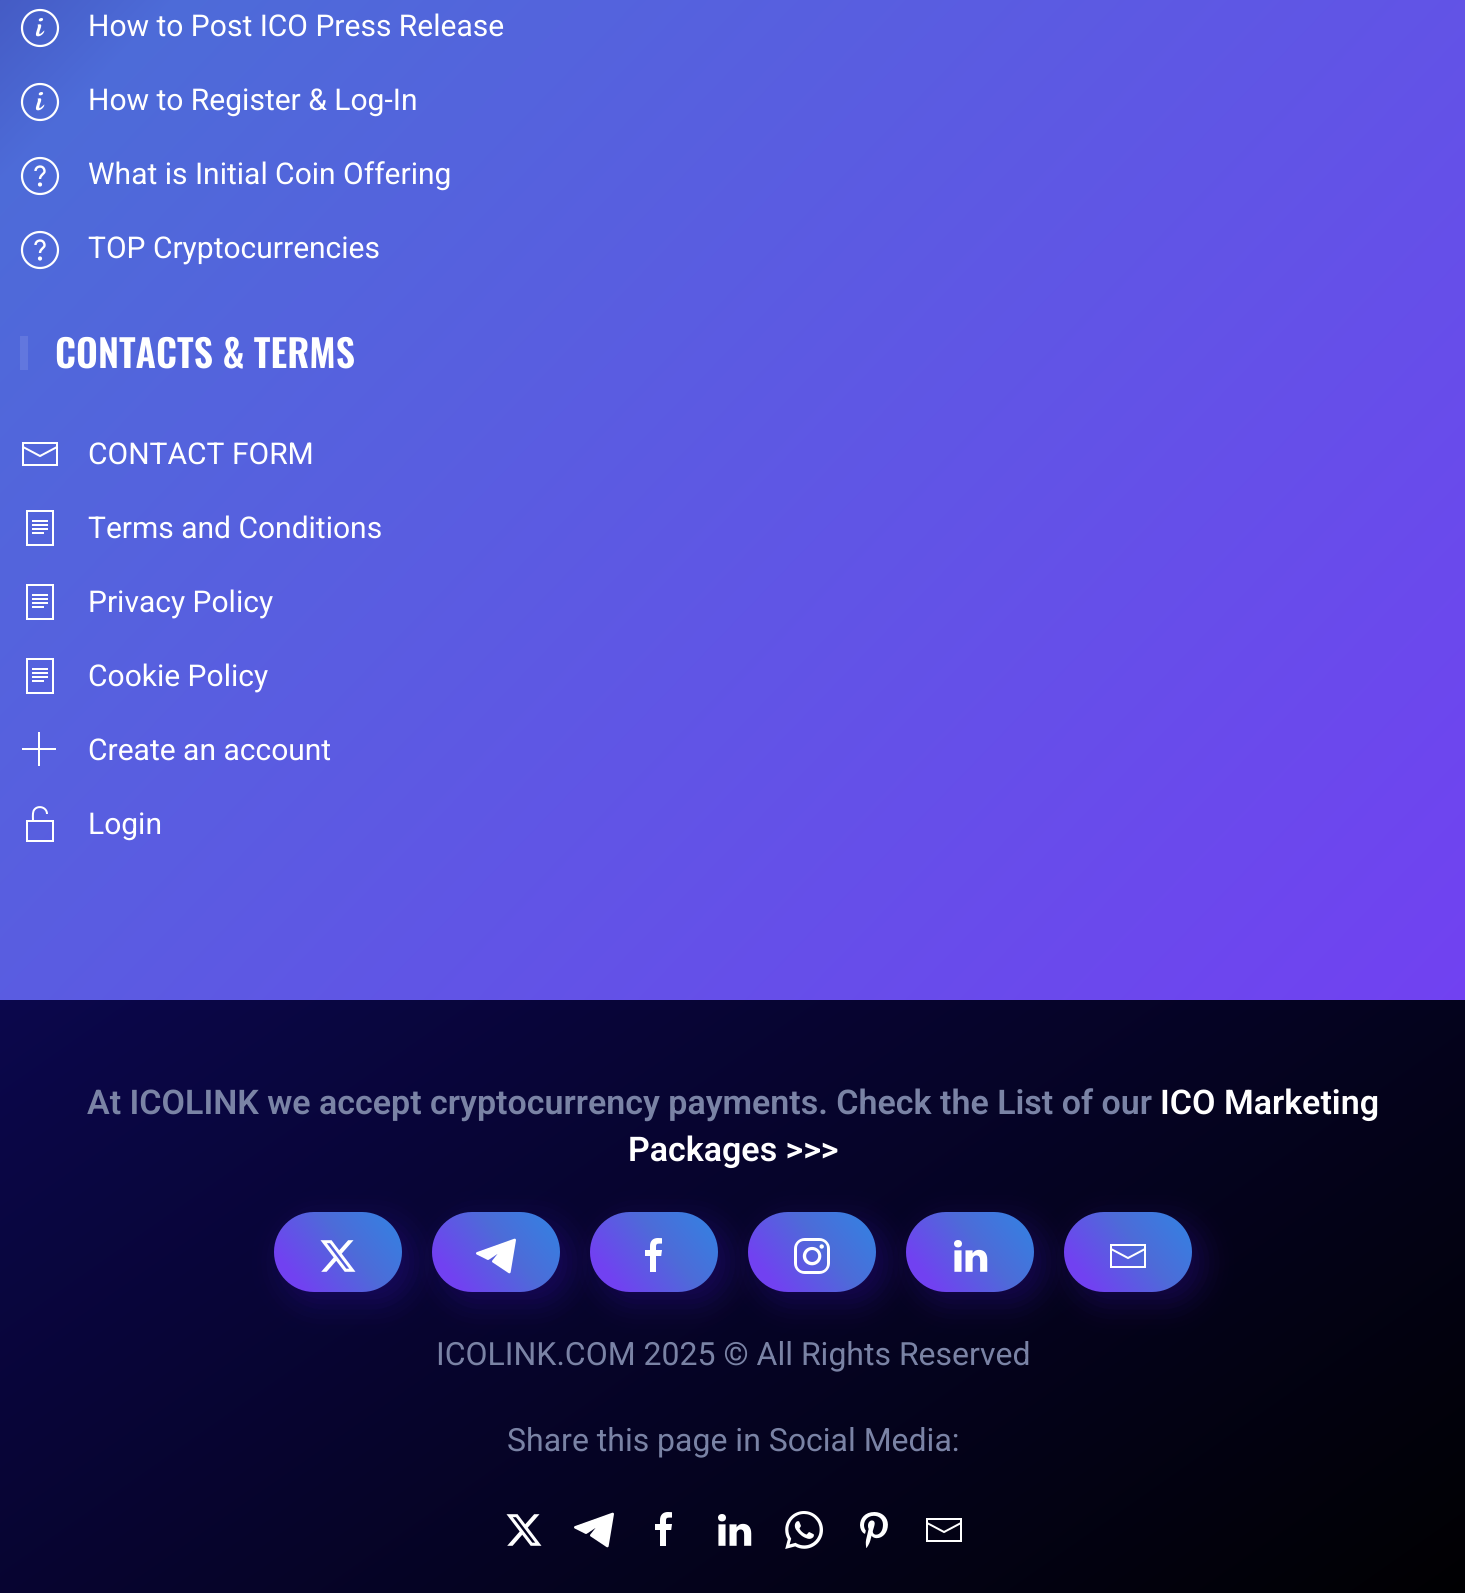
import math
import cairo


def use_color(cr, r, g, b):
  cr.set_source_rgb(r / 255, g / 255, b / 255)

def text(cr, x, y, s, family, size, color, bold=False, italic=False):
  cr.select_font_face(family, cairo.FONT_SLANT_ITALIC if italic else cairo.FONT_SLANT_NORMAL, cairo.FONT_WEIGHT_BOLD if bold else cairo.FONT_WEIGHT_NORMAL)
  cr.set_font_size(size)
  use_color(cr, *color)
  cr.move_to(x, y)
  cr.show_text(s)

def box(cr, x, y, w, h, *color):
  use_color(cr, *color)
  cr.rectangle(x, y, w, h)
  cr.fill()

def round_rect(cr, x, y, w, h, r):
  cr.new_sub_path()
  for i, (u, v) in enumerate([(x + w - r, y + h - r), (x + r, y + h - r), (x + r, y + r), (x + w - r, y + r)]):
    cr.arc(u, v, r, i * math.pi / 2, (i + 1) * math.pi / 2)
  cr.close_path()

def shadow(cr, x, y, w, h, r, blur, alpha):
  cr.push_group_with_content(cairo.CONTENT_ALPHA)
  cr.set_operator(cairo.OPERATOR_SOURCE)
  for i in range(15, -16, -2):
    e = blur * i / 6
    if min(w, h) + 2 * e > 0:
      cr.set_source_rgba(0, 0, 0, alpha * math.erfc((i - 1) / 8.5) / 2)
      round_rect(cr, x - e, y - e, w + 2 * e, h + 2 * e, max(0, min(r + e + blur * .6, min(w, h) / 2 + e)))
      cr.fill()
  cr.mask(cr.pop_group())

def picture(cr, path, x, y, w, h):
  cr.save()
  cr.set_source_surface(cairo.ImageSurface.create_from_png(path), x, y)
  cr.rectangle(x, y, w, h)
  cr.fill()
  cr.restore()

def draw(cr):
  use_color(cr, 255, 255, 255)
  cr.paint()
  gradient = cairo.LinearGradient(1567, 896, -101, -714)
  gradient.add_color_stop_rgba(0, 0.443, 0.255, 0.945, 1)
  gradient.add_color_stop_rgba(0.7, 0.302, 0.42, 0.847, 1)
  gradient.add_color_stop_rgba(1, 0.118, 0.082, 0.424, 1)
  cr.set_source(gradient)
  cr.rectangle(0, 0, 1465, 1000)
  cr.fill()
  picture(cr, "img_01.png", 20, 8, 40, 40)
  picture(cr, "img_02.png", 20, 82, 40, 40)
  cr.arc(40, 176, 18, 0, 2 * math.pi)
  use_color(cr, 255, 255, 255)
  cr.set_line_width(2.2)
  cr.stroke()
  cr.new_path()
  cr.move_to(35.5, 171)
  cr.curve_to(35.5, 165.5, 44, 164.5, 44.5, 171)
  cr.curve_to(45, 173.5, 40, 175, 40, 179)
  cr.set_line_width(2.4)
  cr.stroke()
  cr.arc(40, 184.5, 2.1, 0, 2 * math.pi)
  cr.fill()
  cr.arc(40, 250, 18, 0, 2 * math.pi)
  cr.set_line_width(2.2)
  cr.stroke()
  cr.new_path()
  cr.move_to(35.5, 245)
  cr.curve_to(35.5, 239.5, 44, 238.5, 44.5, 245)
  cr.curve_to(45, 247.5, 40, 249, 40, 253)
  cr.set_line_width(2.4)
  cr.stroke()
  cr.arc(40, 258.5, 2.1, 0, 2 * math.pi)
  cr.fill()
  box(cr, 20, 336, 8, 34, 98, 119, 222)
  cr.new_path()
  cr.move_to(23, 447)
  cr.line_to(40, 456)
  cr.line_to(57, 447)
  use_color(cr, 255, 255, 255)
  cr.set_line_width(2)
  cr.stroke()
  cr.new_path()
  cr.move_to(22, 442)
  cr.line_to(22, 466)
  cr.line_to(58, 466)
  cr.line_to(58, 442)
  cr.close_path()
  cr.move_to(56, 464)
  cr.line_to(24, 464)
  cr.line_to(24, 444)
  cr.line_to(56, 444)
  cr.close_path()
  cr.fill()
  cr.rectangle(27, 511, 26, 34)
  cr.stroke()
  box(cr, 32, 520, 16, 2, 255, 255, 255)
  box(cr, 32, 524, 16, 2, 255, 255, 255)
  box(cr, 32, 528, 16, 2, 255, 255, 255)
  box(cr, 32, 532, 12, 2, 255, 255, 255)
  cr.rectangle(27, 585, 26, 34)
  cr.stroke()
  box(cr, 32, 594, 16, 2, 255, 255, 255)
  box(cr, 32, 598, 16, 2, 255, 255, 255)
  box(cr, 32, 602, 16, 2, 255, 255, 255)
  box(cr, 32, 606, 12, 2, 255, 255, 255)
  cr.rectangle(27, 659, 26, 34)
  cr.stroke()
  box(cr, 32, 668, 16, 2, 255, 255, 255)
  box(cr, 32, 672, 16, 2, 255, 255, 255)
  box(cr, 32, 676, 16, 2, 255, 255, 255)
  box(cr, 32, 680, 12, 2, 255, 255, 255)
  box(cr, 38, 732, 2, 34, 255, 255, 255)
  box(cr, 22, 748, 34, 2, 255, 255, 255)
  cr.rectangle(27, 821, 26, 20)
  cr.stroke()
  cr.new_path()
  cr.move_to(33, 821)
  cr.curve_to(33, 818, 32.5, 814, 33.5, 811)
  cr.curve_to(36.5, 804.5, 47, 806.5, 47, 814)
  cr.stroke()
  gradient = cairo.LinearGradient(1122, 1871, 344, 759)
  gradient.add_color_stop_rgba(0, 0, 0, 0, 1)
  gradient.add_color_stop_rgba(1, 0.043, 0.027, 0.298, 1)
  cr.set_source(gradient)
  cr.rectangle(0, 1000, 1465, 593)
  cr.fill()
  use_color(cr, 60, 14, 189)
  shadow(cr, 284, 1222, 128, 80, 40, 15, 0.3)
  gradient = cairo.LinearGradient(177, 1330, 371, 1174)
  gradient.add_color_stop_rgba(0.5, 0.443, 0.255, 0.945, 1)
  gradient.add_color_stop_rgba(0.75, 0.302, 0.42, 0.847, 1)
  gradient.add_color_stop_rgba(1, 0.192, 0.514, 0.886, 1)
  cr.set_source(gradient)
  round_rect(cr, 274, 1212, 128, 80, 40)
  cr.fill()
  picture(cr, "img_03.png", 320, 1240, 36, 32)
  use_color(cr, 60, 14, 189)
  shadow(cr, 442, 1222, 128, 80, 40, 15, 0.3)
  gradient = cairo.LinearGradient(335, 1330, 529, 1174)
  gradient.add_color_stop_rgba(0.5, 0.443, 0.255, 0.945, 1)
  gradient.add_color_stop_rgba(0.75, 0.302, 0.42, 0.847, 1)
  gradient.add_color_stop_rgba(1, 0.192, 0.514, 0.886, 1)
  cr.set_source(gradient)
  round_rect(cr, 432, 1212, 128, 80, 40)
  cr.fill()
  picture(cr, "img_04.png", 476, 1238, 40, 36)
  use_color(cr, 60, 14, 189)
  shadow(cr, 600, 1222, 128, 80, 40, 15, 0.3)
  gradient = cairo.LinearGradient(493, 1330, 687, 1174)
  gradient.add_color_stop_rgba(0.5, 0.443, 0.255, 0.945, 1)
  gradient.add_color_stop_rgba(0.75, 0.302, 0.42, 0.847, 1)
  gradient.add_color_stop_rgba(1, 0.192, 0.514, 0.886, 1)
  cr.set_source(gradient)
  round_rect(cr, 590, 1212, 128, 80, 40)
  cr.fill()
  picture(cr, "img_05.png", 645, 1238, 17, 34)
  use_color(cr, 60, 14, 189)
  shadow(cr, 758, 1222, 128, 80, 40, 15, 0.3)
  gradient = cairo.LinearGradient(651, 1330, 845, 1174)
  gradient.add_color_stop_rgba(0.5, 0.443, 0.255, 0.945, 1)
  gradient.add_color_stop_rgba(0.75, 0.302, 0.42, 0.847, 1)
  gradient.add_color_stop_rgba(1, 0.192, 0.514, 0.886, 1)
  cr.set_source(gradient)
  round_rect(cr, 748, 1212, 128, 80, 40)
  cr.fill()
  picture(cr, "img_06.png", 794, 1238, 36, 36)
  use_color(cr, 60, 14, 189)
  shadow(cr, 916, 1222, 128, 80, 40, 15, 0.3)
  gradient = cairo.LinearGradient(809, 1330, 1003, 1174)
  gradient.add_color_stop_rgba(0.5, 0.443, 0.255, 0.945, 1)
  gradient.add_color_stop_rgba(0.75, 0.302, 0.42, 0.847, 1)
  gradient.add_color_stop_rgba(1, 0.192, 0.514, 0.886, 1)
  cr.set_source(gradient)
  round_rect(cr, 906, 1212, 128, 80, 40)
  cr.fill()
  picture(cr, "img_07.png", 954, 1240, 34, 32)
  use_color(cr, 60, 14, 189)
  shadow(cr, 1074, 1222, 128, 80, 40, 15, 0.3)
  gradient = cairo.LinearGradient(967, 1330, 1161, 1174)
  gradient.add_color_stop_rgba(0.5, 0.443, 0.255, 0.945, 1)
  gradient.add_color_stop_rgba(0.75, 0.302, 0.42, 0.847, 1)
  gradient.add_color_stop_rgba(1, 0.192, 0.514, 0.886, 1)
  cr.set_source(gradient)
  round_rect(cr, 1064, 1212, 128, 80, 40)
  cr.fill()
  cr.new_path()
  cr.move_to(1111, 1249)
  cr.line_to(1128, 1258)
  cr.line_to(1145, 1249)
  use_color(cr, 255, 255, 255)
  cr.stroke()
  cr.new_path()
  cr.move_to(1110, 1244)
  cr.line_to(1110, 1268)
  cr.line_to(1146, 1268)
  cr.line_to(1146, 1244)
  cr.close_path()
  cr.move_to(1144, 1266)
  cr.line_to(1112, 1266)
  cr.line_to(1112, 1246)
  cr.line_to(1144, 1246)
  cr.close_path()
  cr.fill()
  picture(cr, "img_08.png", 506, 1514, 36, 32)
  picture(cr, "img_09.png", 574, 1512, 40, 36)
  picture(cr, "img_10.png", 655, 1512, 17, 34)
  picture(cr, "img_11.png", 718, 1514, 34, 32)
  picture(cr, "img_12.png", 785, 1511, 38, 38)
  picture(cr, "img_13.png", 860, 1512, 28, 36)
  cr.new_path()
  cr.move_to(927, 1523)
  cr.line_to(944, 1532)
  cr.line_to(961, 1523)
  cr.stroke()
  cr.new_path()
  cr.move_to(926, 1518)
  cr.line_to(926, 1542)
  cr.line_to(962, 1542)
  cr.line_to(962, 1518)
  cr.close_path()
  cr.move_to(960, 1540)
  cr.line_to(928, 1540)
  cr.line_to(928, 1520)
  cr.line_to(960, 1520)
  cr.close_path()
  cr.fill()
  text(cr, 88, 36, "How to Post ICO Press Release", "Roboto", 30, (255, 255, 255))
  text(cr, 88, 110, "How to Register & Log-In", "Roboto", 30, (255, 255, 255))
  text(cr, 88, 184, "What is Initial Coin Offering", "Roboto", 30, (255, 255, 255))
  text(cr, 88, 258, "TOP Cryptocurrencies", "Roboto", 30, (255, 255, 255))
  text(cr, 55, 368, "CONTACTS & TERMS", "Oswald SemiBold", 38, (255, 255, 255))
  text(cr, 88, 464, "CONTACT FORM", "Roboto", 30, (255, 255, 255))
  text(cr, 88, 538, "Terms and Conditions", "Roboto", 30, (255, 255, 255))
  text(cr, 88, 612, "Privacy Policy", "Roboto", 30, (255, 255, 255))
  text(cr, 88, 686, "Cookie Policy", "Roboto", 30, (255, 255, 255))
  text(cr, 88, 760, "Create an account", "Roboto", 30, (255, 255, 255))
  text(cr, 88, 834, "Login", "Roboto", 30, (255, 255, 255))
  text(cr, 87, 1114, "At ICOLINK we accept cryptocurrency payments. Check the List of our", "Roboto SemiBold", 34, (122, 131, 165))
  text(cr, 1160, 1114, "ICO Marketing", "Roboto SemiBold", 34, (255, 255, 255))
  text(cr, 628, 1161, "Packages >>>", "Roboto SemiBold", 34, (255, 255, 255))
  text(cr, 436, 1365, "ICOLINK.COM 2025 © All Rights Reserved", "Roboto", 32, (122, 131, 165))
  text(cr, 507, 1451, "Share this page in Social Media:", "Roboto", 32, (122, 131, 165))


surface = cairo.ImageSurface(cairo.FORMAT_RGB24, 1465, 1593)
cr = cairo.Context(surface)
options = cairo.FontOptions()
options.set_hint_metrics(cairo.HINT_METRICS_OFF)
options.set_hint_style(cairo.HINT_STYLE_NONE)
cr.set_font_options(options)
cr.set_miter_limit(4)
draw(cr)
surface.write_to_png("out.png")
